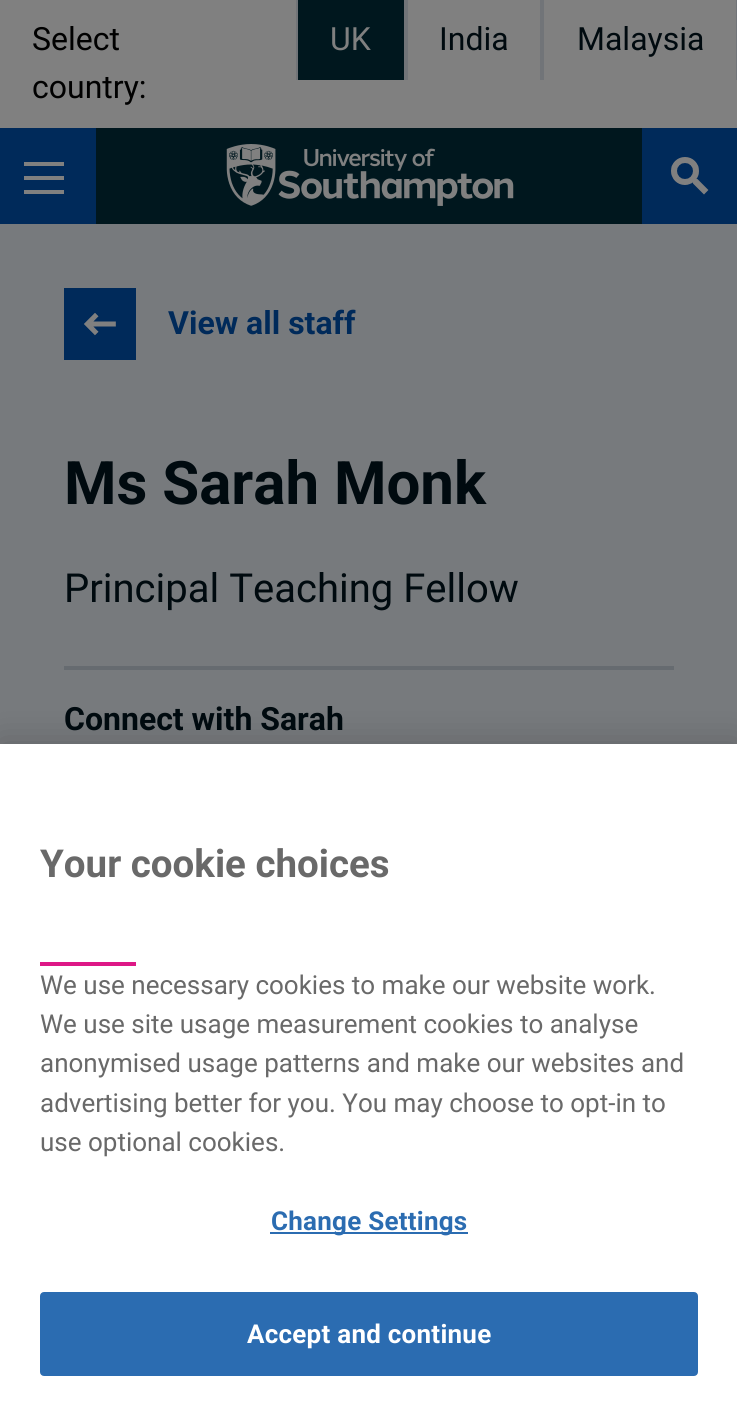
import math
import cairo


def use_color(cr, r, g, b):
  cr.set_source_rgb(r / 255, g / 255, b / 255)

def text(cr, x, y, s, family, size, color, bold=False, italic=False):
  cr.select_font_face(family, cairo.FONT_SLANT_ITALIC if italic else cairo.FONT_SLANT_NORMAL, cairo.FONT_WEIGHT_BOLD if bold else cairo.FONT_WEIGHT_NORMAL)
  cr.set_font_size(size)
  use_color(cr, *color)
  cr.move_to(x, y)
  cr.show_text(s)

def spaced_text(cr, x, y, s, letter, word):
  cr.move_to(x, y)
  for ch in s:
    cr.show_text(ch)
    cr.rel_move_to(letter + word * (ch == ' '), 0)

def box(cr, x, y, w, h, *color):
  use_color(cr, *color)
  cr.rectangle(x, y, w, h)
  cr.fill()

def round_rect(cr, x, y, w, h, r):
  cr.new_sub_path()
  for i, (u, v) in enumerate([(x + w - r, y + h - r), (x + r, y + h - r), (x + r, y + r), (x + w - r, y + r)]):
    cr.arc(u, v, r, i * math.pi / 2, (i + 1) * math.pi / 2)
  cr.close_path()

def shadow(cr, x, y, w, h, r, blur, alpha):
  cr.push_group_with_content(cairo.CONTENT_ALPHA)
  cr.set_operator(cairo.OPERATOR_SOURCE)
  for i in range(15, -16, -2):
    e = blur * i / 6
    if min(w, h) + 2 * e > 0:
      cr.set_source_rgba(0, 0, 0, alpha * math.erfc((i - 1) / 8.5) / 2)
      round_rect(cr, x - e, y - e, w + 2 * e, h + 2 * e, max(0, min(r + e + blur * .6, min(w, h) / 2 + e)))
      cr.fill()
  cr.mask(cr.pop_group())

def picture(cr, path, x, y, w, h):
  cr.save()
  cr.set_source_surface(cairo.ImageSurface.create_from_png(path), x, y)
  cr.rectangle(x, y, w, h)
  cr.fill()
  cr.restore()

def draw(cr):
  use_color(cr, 128, 128, 128)
  cr.paint()
  box(cr, 298, 0, 106, 80, 0, 23, 30)
  box(cr, 404, 0, 4, 80, 113, 116, 120)
  box(cr, 296, 0, 2, 80, 113, 116, 120)
  box(cr, 540, 0, 4, 80, 113, 116, 120)
  box(cr, 736, 0, 1, 80, 113, 116, 120)
  box(cr, 96, 128, 546, 96, 0, 23, 30)
  box(cr, 0, 128, 96, 96, 0, 42, 90)
  box(cr, 24, 162, 40, 4, 128, 128, 128)
  box(cr, 24, 176, 40, 4, 128, 128, 128)
  box(cr, 24, 190, 40, 4, 128, 128, 128)
  picture(cr, "img_01.png", 226, 144, 288, 62)
  box(cr, 642, 128, 95, 96, 0, 42, 90)
  picture(cr, "img_02.png", 671, 157, 38, 38)
  box(cr, 0, 224, 737, 520, 119, 122, 125)
  box(cr, 64, 288, 72, 72, 0, 42, 90)
  picture(cr, "img_03.png", 84, 313, 32, 23)
  box(cr, 64, 666, 610, 4, 102, 107, 112)
  use_color(cr, 0, 0, 0)
  shadow(cr, 0, 744, 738, 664, 0, 18, 0.2)
  box(cr, 0, 744, 737, 663, 255, 255, 255)
  box(cr, 40, 962, 96, 4, 221, 24, 134)
  box(cr, 270, 1232, 198, 2, 43, 108, 177)
  round_rect(cr, 41, 1293, 656, 82, 3)
  cr.fill_preserve()
  cr.stroke()
  text(cr, 32, 50, "Select", "Roboto", 32, (0, 0, 0))
  text(cr, 32, 98, "country:", "Roboto", 32, (0, 0, 0))
  text(cr, 330, 50, "UK", "Roboto", 32, (128, 128, 128))
  text(cr, 439, 50, "India", "Roboto", 32, (0, 10, 15))
  text(cr, 577, 50, "Malaysia", "Roboto", 32, (0, 10, 15))
  text(cr, 168, 334, "View all staff", "Roboto", 32, (0, 42, 90), bold=True)
  text(cr, 64, 504, "Ms Sarah Monk", "Roboto", 60, (0, 10, 15), bold=True)
  text(cr, 64, 602, "Principal Teaching Fellow", "Roboto", 40, (0, 10, 15))
  text(cr, 64, 730, "Connect with Sarah", "Roboto", 32, (0, 10, 15), bold=True)
  text(cr, 40, 877, "Your cookie choices", "Roboto", 38.5, (105, 105, 105), bold=True)
  text(cr, 40, 994, "We use necessary cookies to make our website work.", "Roboto", 26, (105, 105, 105))
  text(cr, 40, 1033, "We use site usage measurement cookies to analyse", "Roboto", 26, (105, 105, 105))
  text(cr, 40, 1072, "anonymised usage patterns and make our websites and", "Roboto", 26, (105, 105, 105))
  text(cr, 40, 1112, "advertising better for you. You may choose to opt-in to", "Roboto", 26, (105, 105, 105))
  text(cr, 40, 1151, "use optional cookies.", "Roboto", 26, (105, 105, 105))
  cr.select_font_face("Roboto", cairo.FONT_SLANT_NORMAL, cairo.FONT_WEIGHT_BOLD)
  use_color(cr, 43, 108, 177)
  spaced_text(cr, 271, 1230, "Change Settings", 0.25, 0)
  use_color(cr, 255, 255, 255)
  spaced_text(cr, 247, 1343, "Accept and continue", 0.25, 0)


surface = cairo.ImageSurface(cairo.FORMAT_RGB24, 737, 1407)
cr = cairo.Context(surface)
options = cairo.FontOptions()
options.set_hint_metrics(cairo.HINT_METRICS_OFF)
options.set_hint_style(cairo.HINT_STYLE_NONE)
cr.set_font_options(options)
cr.set_miter_limit(4)
draw(cr)
surface.write_to_png("out.png")
